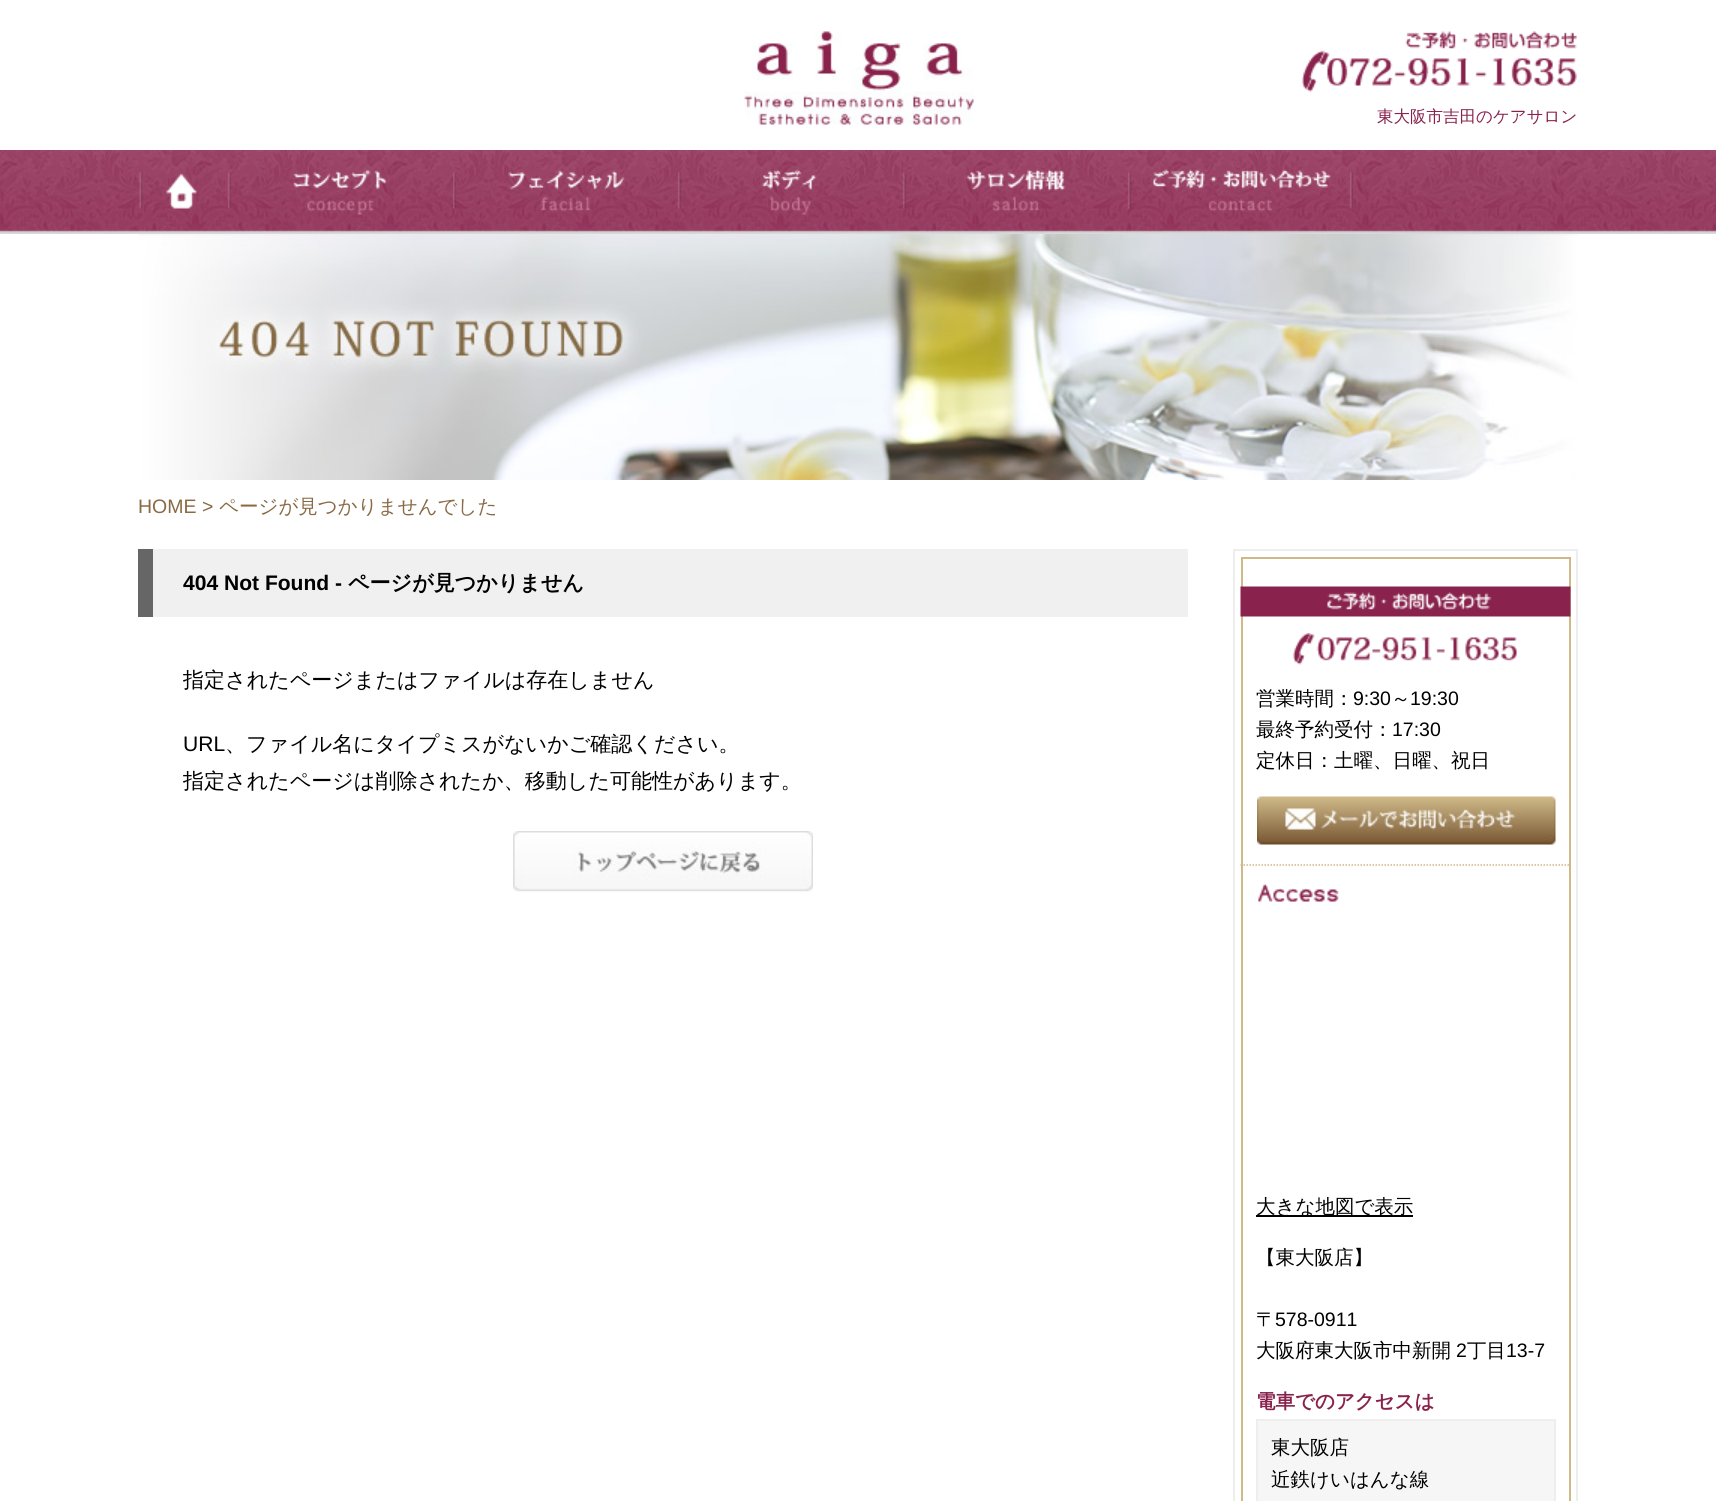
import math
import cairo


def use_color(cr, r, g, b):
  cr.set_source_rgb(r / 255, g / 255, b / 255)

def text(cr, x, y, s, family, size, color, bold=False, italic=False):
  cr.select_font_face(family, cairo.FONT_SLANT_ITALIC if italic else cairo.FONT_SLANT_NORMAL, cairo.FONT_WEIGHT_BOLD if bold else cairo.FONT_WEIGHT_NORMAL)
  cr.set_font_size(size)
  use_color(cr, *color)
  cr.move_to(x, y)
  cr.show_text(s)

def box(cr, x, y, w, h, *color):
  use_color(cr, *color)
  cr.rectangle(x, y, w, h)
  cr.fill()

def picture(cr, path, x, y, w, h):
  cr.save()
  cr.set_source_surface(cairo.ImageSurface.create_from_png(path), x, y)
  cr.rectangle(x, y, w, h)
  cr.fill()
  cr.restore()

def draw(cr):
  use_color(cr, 255, 255, 255)
  cr.paint()
  picture(cr, "img_01.png", 744, 31, 230, 94)
  picture(cr, "img_02.png", 1302, 31, 275, 61)
  picture(cr, "img_03.png", 0, 150, 1716, 84)
  picture(cr, "img_04.png", 139, 172, 91, 37)
  picture(cr, "img_05.png", 229, 169, 226, 46)
  picture(cr, "img_06.png", 454, 170, 226, 42)
  picture(cr, "img_07.png", 679, 169, 226, 46)
  picture(cr, "img_08.png", 904, 169, 226, 43)
  picture(cr, "img_09.png", 1129, 169, 224, 43)
  picture(cr, "img_10.png", 138, 234, 1440, 246)
  box(cr, 153, 549, 1035, 68, 240, 240, 240)
  box(cr, 138, 549, 15, 68, 102, 102, 102)
  picture(cr, "img_11.png", 513, 831, 300, 61)
  cr.rectangle(1234, 550, 343, 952)
  use_color(cr, 238, 238, 238)
  cr.stroke()
  cr.rectangle(1242, 558, 328, 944)
  use_color(cr, 207, 185, 136)
  cr.stroke()
  picture(cr, "img_12.png", 1240, 586, 331, 31)
  picture(cr, "img_13.png", 1293, 633, 224, 32)
  picture(cr, "img_14.png", 1257, 796, 299, 49)
  cr.new_path()
  cr.move_to(1240.5, 865)
  cr.line_to(1570.5, 865)
  cr.set_line_width(1.5)
  cr.set_dash([1.5, 1.5])
  cr.stroke()
  picture(cr, "img_15.png", 1258, 883, 81, 19)
  box(cr, 1256, 1215, 157, 2, 0, 0, 0)
  use_color(cr, 246, 246, 246)
  cr.rectangle(1257, 1420, 298, 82)
  cr.fill_preserve()
  use_color(cr, 238, 238, 238)
  cr.set_line_width(2)
  cr.set_dash([])
  cr.stroke()
  text(cr, 1377, 122, "東大阪市吉田のケアサロン", "WenQuanYi Zen Hei Medium", 16.5, (136, 34, 76))
  text(cr, 138, 513, "HOME >", "Liberation Sans", 19.5, (137, 106, 68))
  text(cr, 219, 513, "ページが見つかりませんでした", "WenQuanYi Zen Hei Medium", 19.5, (137, 106, 68))
  text(cr, 183, 590, "404 Not Found -", "Liberation Sans", 21.05, (0, 0, 0), bold=True)
  text(cr, 348, 590, "ページが見つかりません", "WenQuanYi Zen Hei", 21.05, (0, 0, 0), bold=True)
  text(cr, 183, 687, "指定されたページまたはファイルは存在しません", "WenQuanYi Zen Hei Medium", 21.05, (0, 0, 0))
  text(cr, 183, 751, "URL", "Liberation Sans", 21.05, (0, 0, 0))
  text(cr, 225, 751, "、ファイル名にタイプミスがないかご確認ください。", "WenQuanYi Zen Hei Medium", 21.05, (0, 0, 0))
  text(cr, 183, 788, "指定されたページは削除されたか、移動した可能性があります。", "WenQuanYi Zen Hei Medium", 21.05, (0, 0, 0))
  text(cr, 1256, 705, "営業時間：", "WenQuanYi Zen Hei Medium", 19.5, (0, 0, 0))
  text(cr, 1353, 705, "9:30", "Liberation Sans", 19.5, (0, 0, 0))
  text(cr, 1391, 705, "～", "WenQuanYi Zen Hei Medium", 19.5, (0, 0, 0))
  text(cr, 1410, 705, "19:30", "Liberation Sans", 19.5, (0, 0, 0))
  text(cr, 1256, 736, "最終予約受付：", "WenQuanYi Zen Hei Medium", 19.5, (0, 0, 0))
  text(cr, 1392, 736, "17:30", "Liberation Sans", 19.5, (0, 0, 0))
  text(cr, 1256, 767, "定休日：土曜、日曜、祝日", "WenQuanYi Zen Hei Medium", 19.5, (0, 0, 0))
  text(cr, 1256, 1213, "大きな地図で表示", "WenQuanYi Zen Hei Medium", 19.5, (0, 0, 0))
  text(cr, 1256, 1264, "【東大阪店】", "WenQuanYi Zen Hei Medium", 19.5, (0, 0, 0))
  text(cr, 1256, 1326, "〒", "WenQuanYi Zen Hei Medium", 19.5, (0, 0, 0))
  text(cr, 1275, 1326, "578-0911", "Liberation Sans", 19.5, (0, 0, 0))
  text(cr, 1256, 1357, "大阪府東大阪市中新開", "WenQuanYi Zen Hei Medium", 19.5, (0, 0, 0))
  text(cr, 1456, 1357, "2", "Liberation Sans", 19.5, (0, 0, 0))
  text(cr, 1467, 1357, "丁目", "WenQuanYi Zen Hei Medium", 19.5, (0, 0, 0))
  text(cr, 1506, 1357, "13-7", "Liberation Sans", 19.5, (0, 0, 0))
  text(cr, 1256, 1408, "電車でのアクセスは", "WenQuanYi Zen Hei", 19.5, (136, 34, 76), bold=True)
  text(cr, 1271, 1454, "東大阪店", "WenQuanYi Zen Hei Medium", 19.5, (0, 0, 0))
  text(cr, 1271, 1486, "近鉄けいはんな線", "WenQuanYi Zen Hei Medium", 19.5, (0, 0, 0))


surface = cairo.ImageSurface(cairo.FORMAT_RGB24, 1716, 1501)
cr = cairo.Context(surface)
options = cairo.FontOptions()
options.set_hint_metrics(cairo.HINT_METRICS_OFF)
options.set_hint_style(cairo.HINT_STYLE_NONE)
cr.set_font_options(options)
cr.set_miter_limit(4)
draw(cr)
surface.write_to_png("out.png")
